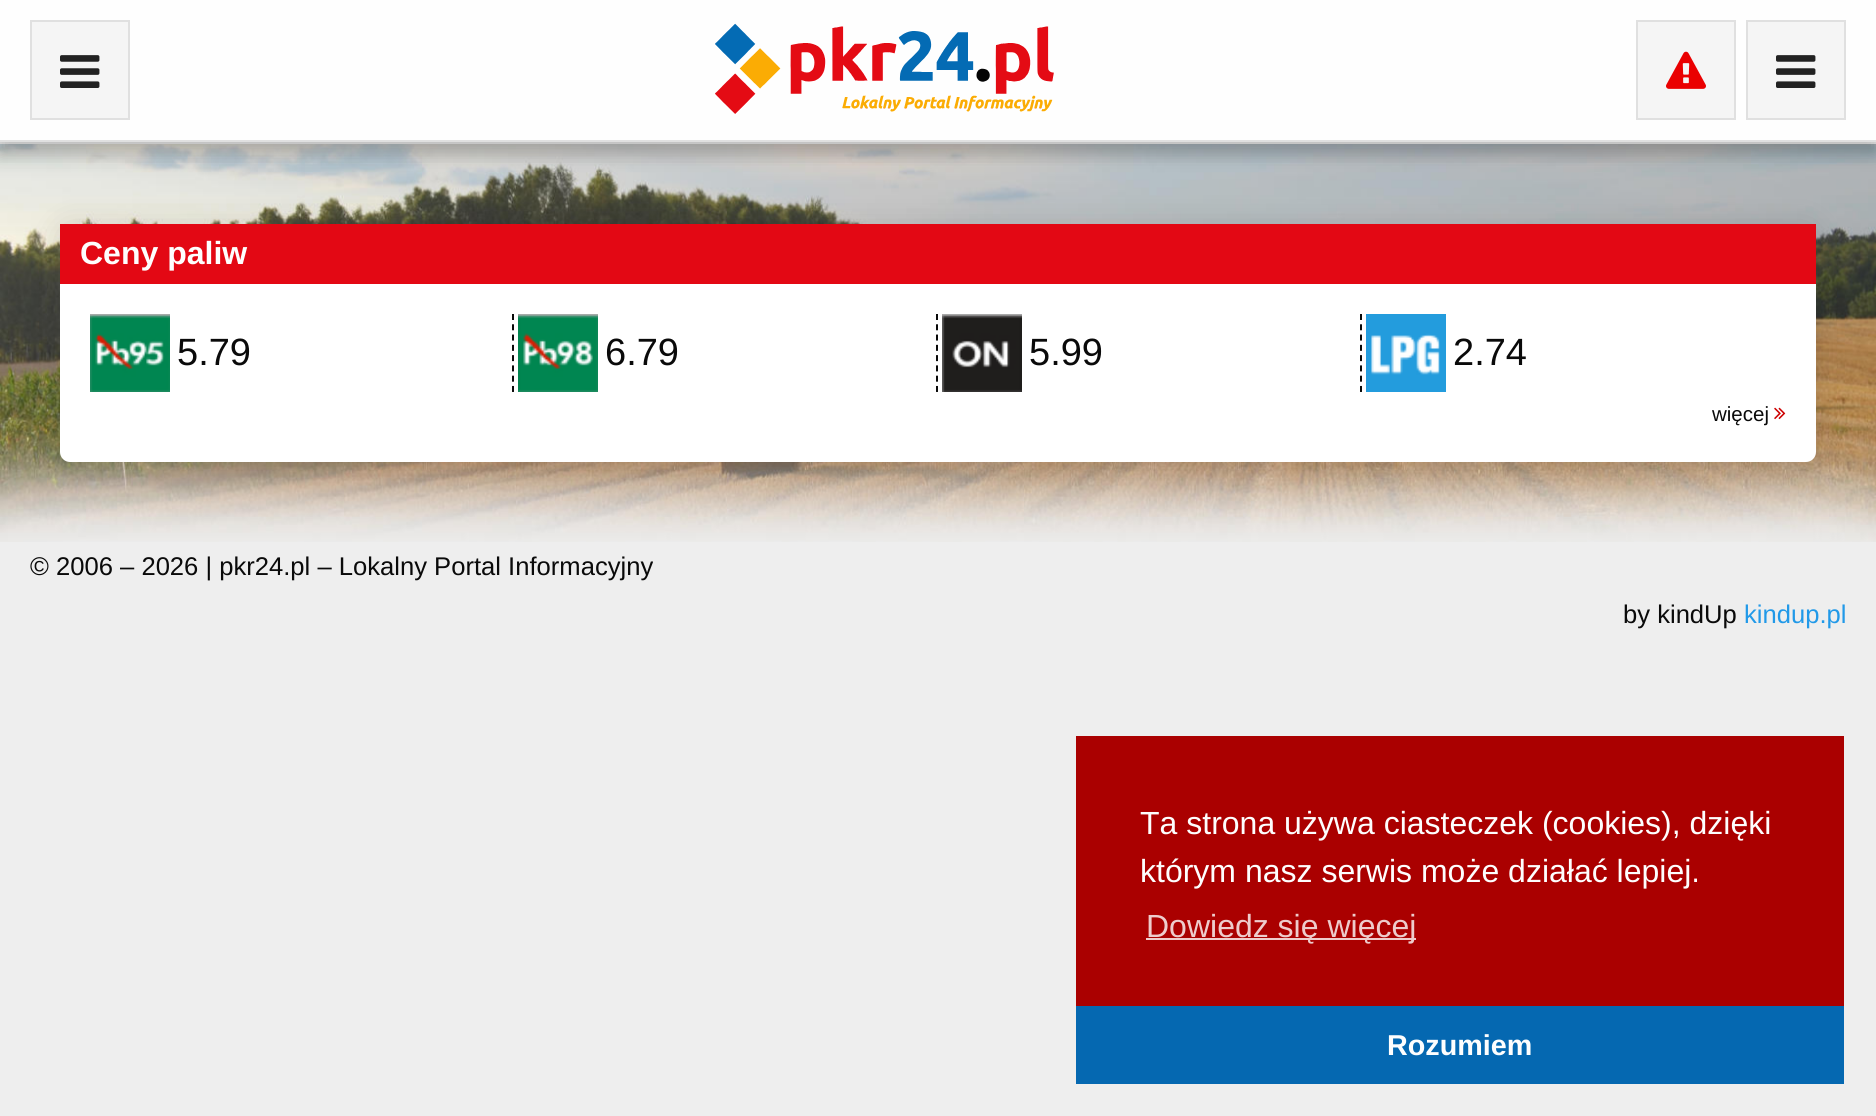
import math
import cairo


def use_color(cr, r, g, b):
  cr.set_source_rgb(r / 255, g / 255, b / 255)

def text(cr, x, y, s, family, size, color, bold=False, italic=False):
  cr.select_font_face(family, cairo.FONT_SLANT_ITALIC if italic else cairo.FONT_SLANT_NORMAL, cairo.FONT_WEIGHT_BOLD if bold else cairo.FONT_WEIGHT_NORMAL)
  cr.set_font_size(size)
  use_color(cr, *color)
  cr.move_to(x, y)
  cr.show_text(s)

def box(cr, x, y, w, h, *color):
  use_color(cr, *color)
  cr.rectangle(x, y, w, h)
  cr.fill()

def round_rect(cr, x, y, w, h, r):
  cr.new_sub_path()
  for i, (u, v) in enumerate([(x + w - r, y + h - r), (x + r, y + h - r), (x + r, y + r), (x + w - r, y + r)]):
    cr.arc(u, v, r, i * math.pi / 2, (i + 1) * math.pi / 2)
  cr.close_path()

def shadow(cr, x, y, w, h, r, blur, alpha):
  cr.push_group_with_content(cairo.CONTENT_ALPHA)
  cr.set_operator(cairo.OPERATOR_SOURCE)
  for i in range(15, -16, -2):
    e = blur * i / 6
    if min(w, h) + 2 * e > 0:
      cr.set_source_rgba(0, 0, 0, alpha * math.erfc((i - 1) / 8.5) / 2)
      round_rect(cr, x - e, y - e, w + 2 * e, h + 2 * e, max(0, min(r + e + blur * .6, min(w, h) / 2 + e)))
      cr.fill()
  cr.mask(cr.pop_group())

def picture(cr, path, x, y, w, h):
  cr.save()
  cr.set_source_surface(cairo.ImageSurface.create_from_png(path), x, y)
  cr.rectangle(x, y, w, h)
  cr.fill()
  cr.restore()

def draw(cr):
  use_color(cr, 238, 238, 238)
  cr.paint()
  picture(cr, "img_04.png", 0, 144, 1876, 398)
  use_color(cr, 0, 0, 0)
  shadow(cr, 0, 10, 1876, 144, 0, 10, 0.15)
  box(cr, 0, 0, 1876, 140, 254, 254, 254)
  box(cr, 0, 142, 1876, 2, 224, 224, 224)
  cr.save()
  cr.rectangle(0, 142, 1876, 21)
  cr.clip()
  use_color(cr, 0, 0, 0)
  shadow(cr, 0, 10, 1876, 142, 0, 10, 0.15)
  cr.restore()
  box(cr, 0, 140, 1876, 2, 224, 224, 224)
  use_color(cr, 245, 245, 245)
  cr.rectangle(31, 21, 98, 98)
  cr.fill_preserve()
  use_color(cr, 224, 224, 224)
  cr.stroke()
  picture(cr, "img_01.png", 60, 55, 40, 33)
  picture(cr, "img_02.png", 715, 23, 339, 91)
  use_color(cr, 245, 245, 245)
  cr.rectangle(1637, 21, 98, 98)
  cr.fill_preserve()
  use_color(cr, 224, 224, 224)
  cr.stroke()
  picture(cr, "img_03.png", 1666, 51, 40, 38)
  use_color(cr, 245, 245, 245)
  cr.rectangle(1747, 21, 98, 98)
  cr.fill_preserve()
  use_color(cr, 224, 224, 224)
  cr.stroke()
  picture(cr, "img_01.png", 1776, 55, 40, 33)
  use_color(cr, 37, 37, 37)
  shadow(cr, 60, 226, 1756, 238, 10, 15, 0.15)
  use_color(cr, 255, 255, 255)
  round_rect(cr, 60, 224, 1756, 238, 10)
  cr.fill()
  box(cr, 60, 224, 1756, 60, 227, 8, 20)
  cr.new_path()
  cr.move_to(513, 314)
  cr.line_to(513, 392)
  use_color(cr, 10, 10, 10)
  cr.set_dash([6, 4.28])
  cr.stroke()
  picture(cr, "img_05.png", 90, 314, 80, 78)
  cr.new_path()
  cr.move_to(937, 314)
  cr.line_to(937, 392)
  cr.stroke()
  picture(cr, "img_06.png", 518, 314, 80, 78)
  cr.new_path()
  cr.move_to(1361, 314)
  cr.line_to(1361, 392)
  cr.stroke()
  picture(cr, "img_07.png", 942, 314, 80, 78)
  picture(cr, "img_08.png", 1366, 314, 80, 78)
  picture(cr, "img_09.png", 1774, 407, 12, 13)
  box(cr, 1076, 736, 768, 270, 170, 0, 0)
  box(cr, 1146, 938, 270, 2, 238, 204, 204)
  box(cr, 1076, 1006, 768, 78, 5, 104, 177)
  text(cr, 80, 264, "Ceny paliw", "Liberation Sans", 32, (254, 254, 254), bold=True)
  text(cr, 177, 365, "5.79", "Liberation Sans", 38, (10, 10, 10))
  text(cr, 605, 365, "6.79", "Liberation Sans", 38, (10, 10, 10))
  text(cr, 1029, 365, "5.99", "Liberation Sans", 38, (10, 10, 10))
  text(cr, 1453, 365, "2.74", "Liberation Sans", 38, (10, 10, 10))
  text(cr, 1712, 421, "więcej", "Liberation Sans", 20.5, (10, 10, 10))
  text(cr, 30, 575, "© 2006 – 2026 | pkr24.pl – Lokalny Portal Informacyjny", "Liberation Sans", 25.6, (10, 10, 10))
  text(cr, 1623, 623, "by kindUp", "Liberation Sans", 25.6, (10, 10, 10))
  text(cr, 1744, 623, "kindup.pl", "Liberation Sans", 25.6, (33, 153, 232))
  text(cr, 1140, 834, "Ta strona używa ciasteczek (cookies), dzięki", "Liberation Sans", 32, (254, 254, 254))
  text(cr, 1140, 882, "którym nasz serwis może działać lepiej.", "Liberation Sans", 32, (254, 254, 254))
  text(cr, 1146, 937, "Dowiedz się więcej", "Liberation Sans", 32, (238, 204, 204))
  text(cr, 1387, 1055, "Rozumiem", "Liberation Sans", 28.75, (254, 254, 254), bold=True)


surface = cairo.ImageSurface(cairo.FORMAT_RGB24, 1876, 1116)
cr = cairo.Context(surface)
options = cairo.FontOptions()
options.set_hint_metrics(cairo.HINT_METRICS_OFF)
options.set_hint_style(cairo.HINT_STYLE_NONE)
cr.set_font_options(options)
cr.set_miter_limit(4)
draw(cr)
surface.write_to_png("out.png")
